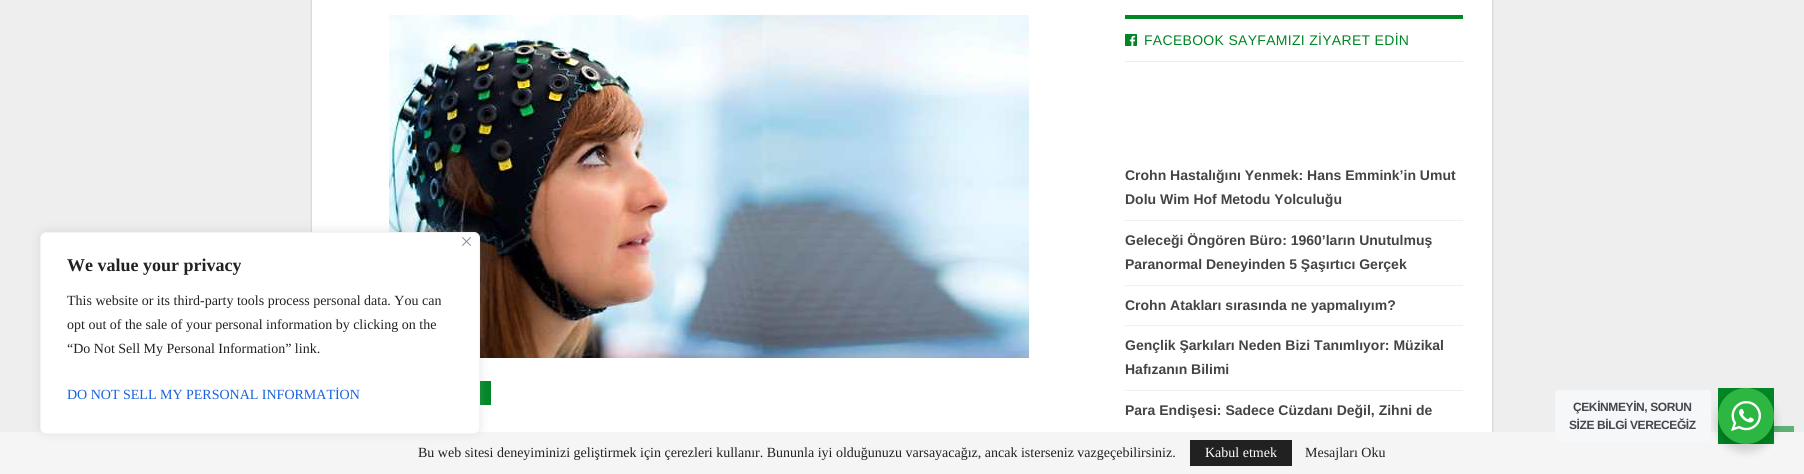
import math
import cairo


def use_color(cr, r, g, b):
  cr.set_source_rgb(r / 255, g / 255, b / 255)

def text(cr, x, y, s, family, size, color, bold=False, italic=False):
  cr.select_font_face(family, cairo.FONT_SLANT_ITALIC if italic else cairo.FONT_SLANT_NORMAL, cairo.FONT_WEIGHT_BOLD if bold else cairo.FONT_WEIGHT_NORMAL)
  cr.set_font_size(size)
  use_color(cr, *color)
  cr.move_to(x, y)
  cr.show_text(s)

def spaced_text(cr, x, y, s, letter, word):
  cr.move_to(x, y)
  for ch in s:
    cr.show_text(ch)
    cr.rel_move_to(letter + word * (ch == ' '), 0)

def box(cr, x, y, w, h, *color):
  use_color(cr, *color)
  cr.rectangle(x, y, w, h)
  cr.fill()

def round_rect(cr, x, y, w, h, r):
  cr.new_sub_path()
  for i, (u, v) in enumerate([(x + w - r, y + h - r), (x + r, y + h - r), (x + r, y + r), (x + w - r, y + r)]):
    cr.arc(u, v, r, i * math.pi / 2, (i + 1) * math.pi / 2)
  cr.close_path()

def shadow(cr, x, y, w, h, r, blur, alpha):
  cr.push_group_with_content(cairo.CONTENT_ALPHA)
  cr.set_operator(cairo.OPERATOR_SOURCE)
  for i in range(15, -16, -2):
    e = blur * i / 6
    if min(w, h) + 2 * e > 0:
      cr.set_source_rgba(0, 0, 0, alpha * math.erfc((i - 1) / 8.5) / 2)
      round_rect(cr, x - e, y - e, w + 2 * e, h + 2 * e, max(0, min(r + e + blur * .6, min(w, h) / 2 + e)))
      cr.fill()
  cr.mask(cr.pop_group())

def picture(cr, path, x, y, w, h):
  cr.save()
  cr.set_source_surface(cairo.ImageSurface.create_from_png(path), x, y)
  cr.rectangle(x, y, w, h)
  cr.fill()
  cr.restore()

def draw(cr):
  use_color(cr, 238, 238, 238)
  cr.paint()
  use_color(cr, 0, 0, 0)
  shadow(cr, 312, -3, 1180, 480, 0, 1, 0.27)
  box(cr, 312, 0, 1180, 432, 255, 255, 255)
  picture(cr, "img_02.png", 389, 15, 640, 343)
  box(cr, 480, 381, 11, 24, 0, 134, 37)
  use_color(cr, 95, 95, 95)
  shadow(cr, 1754, 427, 40, 40, 0, 1, 0.09)
  box(cr, 0, 432, 1804, 42, 245, 245, 245)
  use_color(cr, 172, 171, 171)
  shadow(cr, 40, 231, 440, 202, 6, 5, 0.3)
  use_color(cr, 255, 255, 255)
  round_rect(cr, 40.5, 232.5, 439, 201, 5.5)
  cr.fill_preserve()
  use_color(cr, 244, 244, 244)
  cr.set_line_width(1)
  cr.stroke()
  picture(cr, "img_01.png", 462, 237, 9, 9)
  box(cr, 1125, 15, 338, 4, 0, 134, 37)
  picture(cr, "img_03.png", 1125, 34, 12, 12)
  box(cr, 1125, 61, 338, 1, 237, 237, 237)
  box(cr, 1125, 220, 338, 1, 240, 240, 240)
  box(cr, 1125, 285, 338, 1, 240, 240, 240)
  box(cr, 1125, 325, 338, 1, 240, 240, 240)
  box(cr, 1125, 390, 338, 1, 240, 240, 240)
  box(cr, 1718, 388, 56, 56, 0, 134, 37)
  box(cr, 1774, 426, 20, 6, 95, 176, 117)
  use_color(cr, 0, 0, 0)
  shadow(cr, 1716, 392, 60, 60, 30, 4, 0.14)
  use_color(cr, 245, 247, 249)
  round_rect(cr, 1555, 390, 156, 52, 4)
  cr.fill()
  use_color(cr, 45, 183, 66)
  cr.arc(1746, 416, 28, 0, 2 * math.pi)
  cr.fill()
  picture(cr, "img_04.png", 1731, 401, 30, 30)
  box(cr, 1190, 440, 102, 26, 33, 33, 33)
  text(cr, 67, 271, "We value your privacy", "Liberation Serif", 18, (33, 33, 33), bold=True)
  text(cr, 67, 305, "This website or its third-party tools process personal data. You can", "Liberation Serif", 14, (33, 33, 33))
  text(cr, 67, 329, "opt out of the sale of your personal information by clicking on the", "Liberation Serif", 14, (33, 33, 33))
  text(cr, 67, 353, "“Do Not Sell My Personal Information” link.", "Liberation Serif", 14, (33, 33, 33))
  text(cr, 67, 399, "DO NOT SELL MY PERSONAL INFORMATİON", "Liberation Serif", 14, (24, 99, 220))
  cr.select_font_face("Liberation Sans")
  use_color(cr, 0, 134, 37)
  spaced_text(cr, 1144, 45, "FACEBOOK SAYFAMIZI ZİYARET EDİN", 0.3, 0)
  text(cr, 1125, 180, "Crohn Hastalığını Yenmek: Hans Emmink’in Umut", "Liberation Sans", 14, (68, 68, 68), bold=True)
  text(cr, 1125, 204, "Dolu Wim Hof Metodu Yolculuğu", "Liberation Sans", 14, (68, 68, 68), bold=True)
  text(cr, 1125, 245, "Geleceği Öngören Büro: 1960’ların Unutulmuş", "Liberation Sans", 14, (68, 68, 68), bold=True)
  text(cr, 1125, 269, "Paranormal Deneyinden 5 Şaşırtıcı Gerçek", "Liberation Sans", 14, (68, 68, 68), bold=True)
  text(cr, 1125, 310, "Crohn Atakları sırasında ne yapmalıyım?", "Liberation Sans", 14, (68, 68, 68), bold=True)
  text(cr, 1125, 350, "Gençlik Şarkıları Neden Bizi Tanımlıyor: Müzikal", "Liberation Sans", 14, (68, 68, 68), bold=True)
  text(cr, 1125, 374, "Hafızanın Bilimi", "Liberation Sans", 14, (68, 68, 68), bold=True)
  text(cr, 1125, 415, "Para Endişesi: Sadece Cüzdanı Değil, Zihni de", "Liberation Sans", 14, (68, 68, 68), bold=True)
  cr.set_font_size(12)
  use_color(cr, 67, 71, 78)
  spaced_text(cr, 1573, 411, "ÇEKİNMEYİN, SORUN", -0.4, 0)
  spaced_text(cr, 1569, 429, "SİZE BİLGİ VERECEĞİZ", -0.4, 0)
  text(cr, 418, 457, "Bu web sitesi deneyiminizi geliştirmek için çerezleri kullanır. Bununla iyi olduğunuzu varsayacağız, ancak isterseniz vazgeçebilirsiniz.", "Liberation Serif", 14, (33, 33, 33))
  text(cr, 1205, 457, "Kabul etmek", "Liberation Serif", 14, (255, 255, 255))
  text(cr, 1305, 457, "Mesajları Oku", "Liberation Serif", 14, (33, 33, 33))


surface = cairo.ImageSurface(cairo.FORMAT_RGB24, 1804, 474)
cr = cairo.Context(surface)
options = cairo.FontOptions()
options.set_hint_metrics(cairo.HINT_METRICS_OFF)
options.set_hint_style(cairo.HINT_STYLE_NONE)
cr.set_font_options(options)
cr.set_miter_limit(4)
draw(cr)
surface.write_to_png("out.png")
